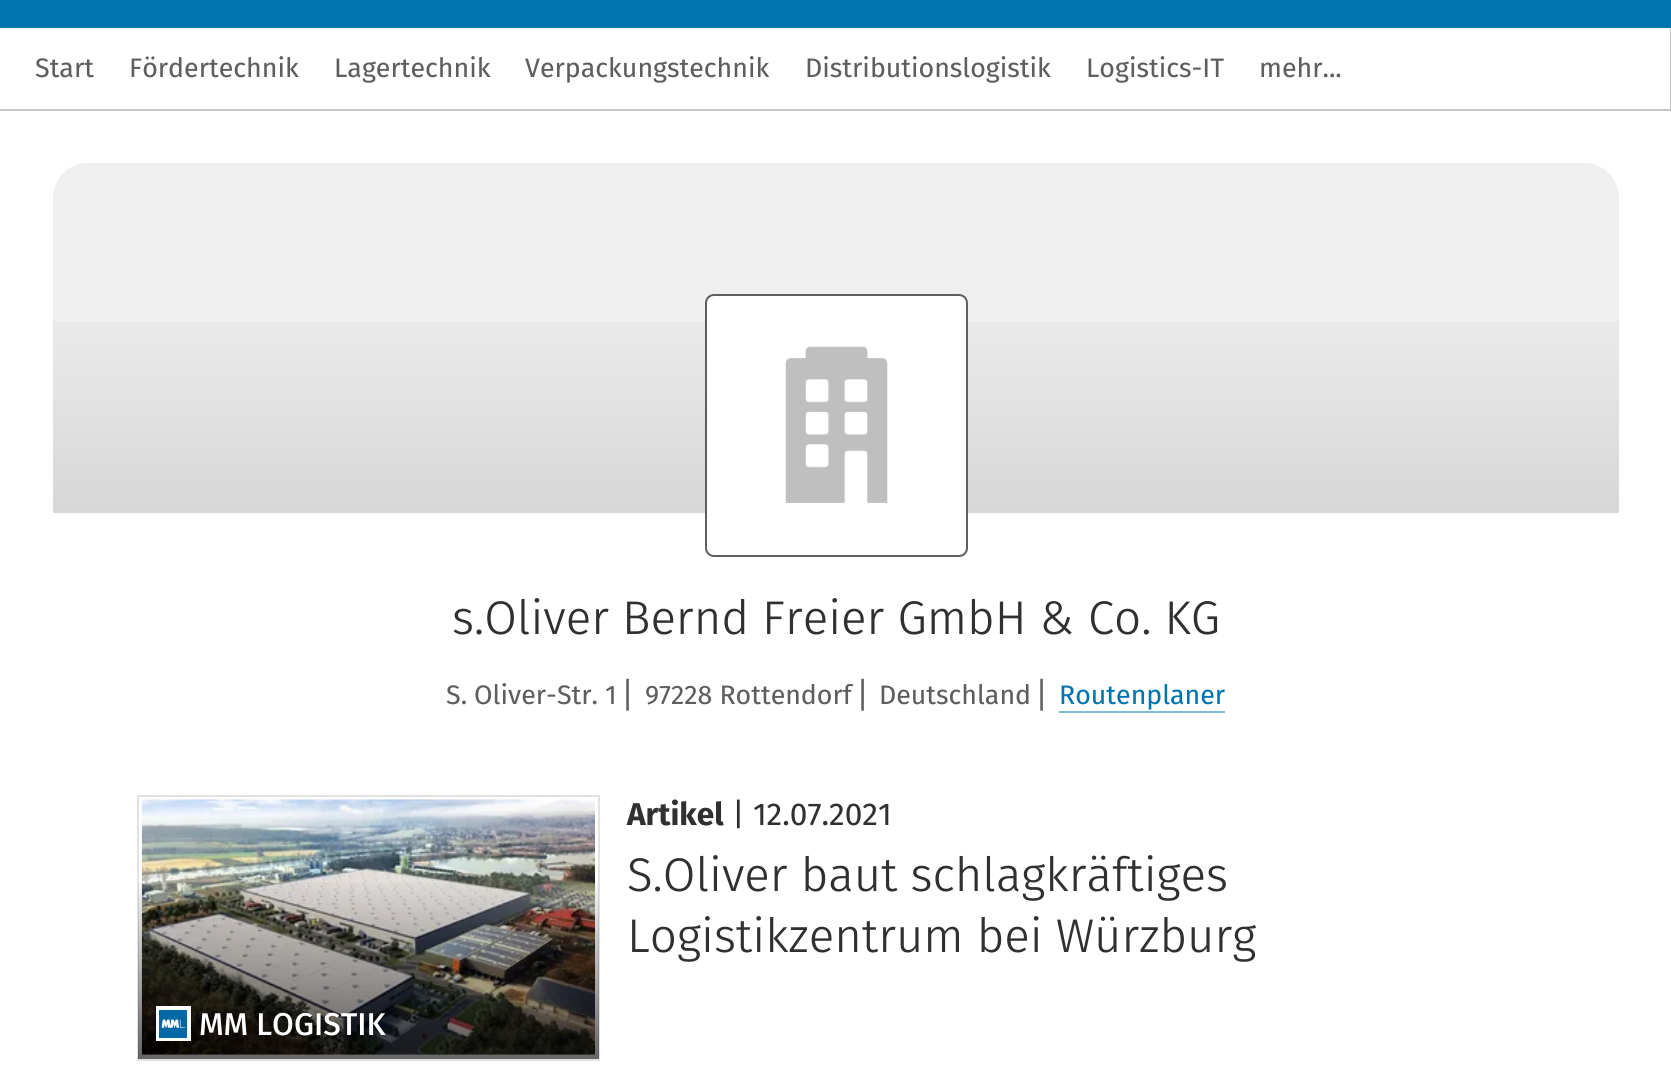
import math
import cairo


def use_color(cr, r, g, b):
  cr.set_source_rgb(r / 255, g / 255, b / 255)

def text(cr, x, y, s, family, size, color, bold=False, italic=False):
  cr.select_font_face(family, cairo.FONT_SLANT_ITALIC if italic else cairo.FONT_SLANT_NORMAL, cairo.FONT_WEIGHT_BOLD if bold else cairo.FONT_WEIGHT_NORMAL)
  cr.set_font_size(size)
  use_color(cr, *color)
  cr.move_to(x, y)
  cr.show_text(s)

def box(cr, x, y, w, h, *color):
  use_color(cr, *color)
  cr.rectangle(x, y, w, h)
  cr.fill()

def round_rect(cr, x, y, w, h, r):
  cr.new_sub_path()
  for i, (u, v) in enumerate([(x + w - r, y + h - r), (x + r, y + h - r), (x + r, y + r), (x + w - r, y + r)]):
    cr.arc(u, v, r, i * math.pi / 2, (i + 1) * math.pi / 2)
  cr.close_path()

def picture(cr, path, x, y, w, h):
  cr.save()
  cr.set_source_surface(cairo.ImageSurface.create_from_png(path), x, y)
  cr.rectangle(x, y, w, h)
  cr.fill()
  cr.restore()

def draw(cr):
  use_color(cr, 255, 255, 255)
  cr.paint()
  box(cr, 0, 109, 1671, 2, 198, 198, 198)
  box(cr, 0, 0, 1671, 28, 0, 116, 174)
  box(cr, 1670, 28, 1, 81, 198, 198, 198)
  use_color(cr, 239, 239, 239)
  cr.new_path()
  cr.move_to(88, 163)
  cr.line_to(1584, 163)
  cr.curve_to(1603.5, 163, 1619, 178.5, 1619, 198)
  cr.line_to(1619, 513)
  cr.line_to(53, 513)
  cr.line_to(53, 198)
  cr.curve_to(53, 178.5, 68.5, 163, 88, 163)
  cr.close_path()
  cr.fill()
  gradient = cairo.LinearGradient(836, 513, 836, 163)
  gradient.add_color_stop_rgba(0, 0, 0, 0, 0.1)
  gradient.add_color_stop_rgba(0.7, 0, 0, 0, 0)
  cr.set_source(gradient)
  cr.rectangle(53, 321, 1566, 192)
  cr.fill()
  use_color(cr, 255, 255, 255)
  round_rect(cr, 706, 295, 261, 261, 8)
  cr.fill_preserve()
  use_color(cr, 94, 94, 94)
  cr.stroke()
  picture(cr, "img_01.png", 785, 346, 103, 157)
  box(cr, 1059, 711, 166, 2, 128, 186, 215)
  cr.rectangle(138, 796, 461, 264)
  use_color(cr, 226, 226, 226)
  cr.stroke()
  picture(cr, "img_02.png", 141, 799, 454, 256)
  gradient = cairo.LinearGradient(368, 1059, 368, 796)
  gradient.add_color_stop_rgba(0, 0, 0, 0, 0.6)
  gradient.add_color_stop_rgba(0.7, 0, 0, 0, 0)
  cr.set_source(gradient)
  cr.rectangle(138, 882, 461, 177)
  cr.fill()
  box(cr, 156, 1006, 35, 35, 255, 255, 255)
  picture(cr, "img_03.png", 159, 1010, 28, 28)
  text(cr, 35, 77, "Start", "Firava", 26.75, (94, 94, 94))
  text(cr, 129, 77, "Fördertechnik", "Firava", 26.75, (94, 94, 94))
  text(cr, 334, 77, "Lagertechnik", "Firava", 26.75, (94, 94, 94))
  text(cr, 525, 77, "Verpackungstechnik", "Firava", 26.75, (94, 94, 94))
  text(cr, 805, 77, "Distributionslogistik", "Firava", 26.75, (94, 94, 94))
  text(cr, 1086, 77, "Logistics-IT", "Firava", 26.75, (94, 94, 94))
  text(cr, 1259, 77, "mehr...", "Firava", 26.75, (94, 94, 94))
  text(cr, 452, 634, "s.Oliver Bernd Freier GmbH & Co. KG", "Firava Light", 47.25, (48, 48, 48))
  text(cr, 446, 704, "S. Oliver-Str. 1", "Firava", 26.75, (94, 94, 94))
  text(cr, 624, 704, "⎢", "DejaVu Sans", 26.75, (94, 94, 94))
  text(cr, 645, 704, "97228 Rottendorf", "Firava", 26.75, (94, 94, 94))
  text(cr, 859, 704, "⎢", "DejaVu Sans", 26.75, (94, 94, 94))
  text(cr, 879, 704, "Deutschland", "Firava", 26.75, (94, 94, 94))
  text(cr, 1038, 704, "⎢", "DejaVu Sans", 26.75, (94, 94, 94))
  text(cr, 1059, 704, "Routenplaner", "Firava", 26.75, (0, 116, 174))
  text(cr, 627, 825, "Artikel", "Firava", 31.5, (48, 48, 48), bold=True)
  text(cr, 732, 825, "| 12.07.2021", "Firava", 31.5, (48, 48, 48))
  text(cr, 627, 891, "S.Oliver baut schlagkräftiges", "Firava Light", 47.25, (48, 48, 48))
  text(cr, 627, 952, "Logistikzentrum bei Würzburg", "Firava Light", 47.25, (48, 48, 48))
  text(cr, 199, 1035, "MM LOGISTIK", "Firava Medium", 31.5, (255, 255, 255))


surface = cairo.ImageSurface(cairo.FORMAT_RGB24, 1671, 1089)
cr = cairo.Context(surface)
options = cairo.FontOptions()
options.set_hint_metrics(cairo.HINT_METRICS_OFF)
options.set_hint_style(cairo.HINT_STYLE_NONE)
cr.set_font_options(options)
cr.set_miter_limit(4)
draw(cr)
surface.write_to_png("out.png")
